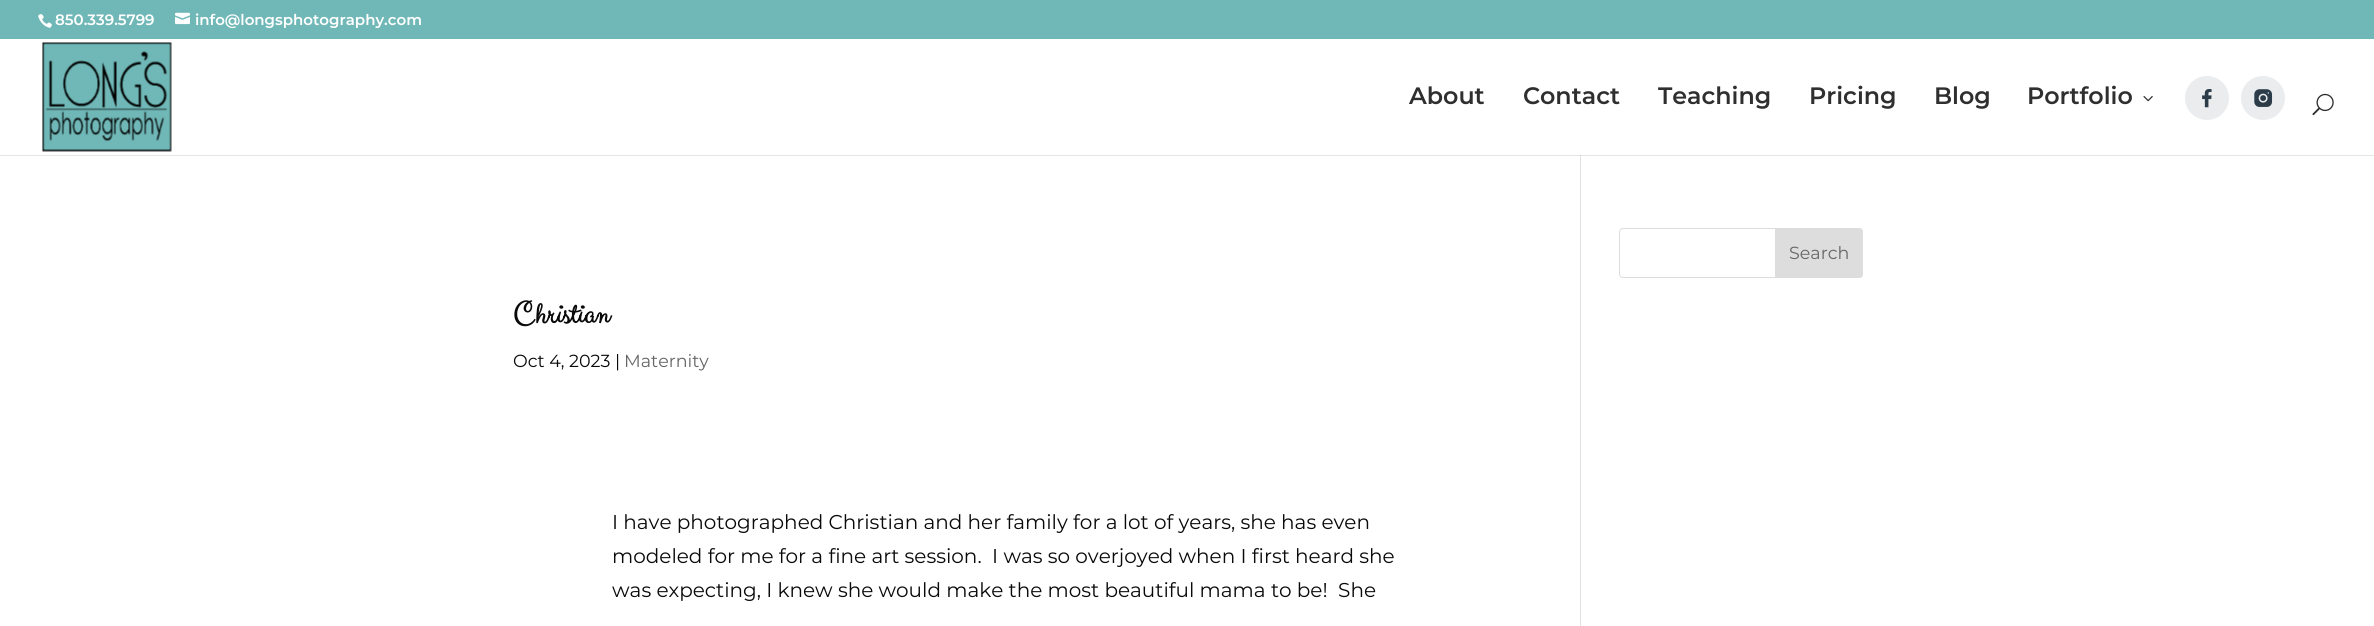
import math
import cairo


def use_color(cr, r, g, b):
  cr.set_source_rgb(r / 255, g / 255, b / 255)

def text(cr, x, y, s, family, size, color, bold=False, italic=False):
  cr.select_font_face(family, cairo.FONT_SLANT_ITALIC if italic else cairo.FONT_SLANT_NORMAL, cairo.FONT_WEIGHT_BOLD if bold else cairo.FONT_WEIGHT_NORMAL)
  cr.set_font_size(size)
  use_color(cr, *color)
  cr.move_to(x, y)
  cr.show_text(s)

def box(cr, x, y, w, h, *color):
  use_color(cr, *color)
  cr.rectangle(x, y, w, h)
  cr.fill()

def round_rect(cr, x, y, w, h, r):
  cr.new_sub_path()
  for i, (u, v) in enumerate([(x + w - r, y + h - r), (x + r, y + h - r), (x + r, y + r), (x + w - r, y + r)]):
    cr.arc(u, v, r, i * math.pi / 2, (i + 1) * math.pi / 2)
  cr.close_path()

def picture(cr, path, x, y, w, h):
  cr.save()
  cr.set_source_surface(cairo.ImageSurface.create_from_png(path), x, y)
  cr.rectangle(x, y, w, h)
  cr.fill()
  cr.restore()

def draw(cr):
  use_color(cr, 255, 255, 255)
  cr.paint()
  box(cr, 0, 155, 2374, 1, 230, 230, 230)
  box(cr, 0, 0, 2374, 39, 112, 184, 183)
  picture(cr, "img_01.png", 38, 14, 14, 14)
  picture(cr, "img_02.png", 175, 12, 15, 13)
  picture(cr, "img_03.png", 42, 42, 130, 110)
  picture(cr, "img_04.png", 2143, 96, 10, 6)
  use_color(cr, 234, 236, 237)
  cr.arc(2207, 98, 22, 0, 2 * math.pi)
  cr.fill()
  picture(cr, "img_05.png", 2202, 89, 10, 19)
  cr.arc(2263, 98, 22, 0, 2 * math.pi)
  cr.fill()
  picture(cr, "img_06.png", 2254, 89, 19, 18)
  picture(cr, "img_07.png", 2312, 93, 22, 23)
  box(cr, 1580, 155, 1, 471, 226, 226, 226)
  box(cr, 1580, 155, 1, 1, 203, 203, 203)
  round_rect(cr, 1619.5, 228.5, 243, 49, 3.5)
  use_color(cr, 221, 221, 221)
  cr.set_line_width(1)
  cr.stroke()
  cr.new_path()
  cr.move_to(1775.5, 228.5)
  cr.line_to(1859, 228.5)
  cr.curve_to(1861, 228.5, 1862.5, 230, 1862.5, 232)
  cr.line_to(1862.5, 274)
  cr.curve_to(1862.5, 276, 1861, 277.5, 1859, 277.5)
  cr.line_to(1775.5, 277.5)
  cr.close_path()
  cr.fill_preserve()
  cr.stroke()
  text(cr, 55, 25, "850.339.5799", "Montserrat SemiBold", 15, (255, 255, 255))
  text(cr, 195, 25, "info@longsphotography.com", "Montserrat SemiBold", 15, (255, 255, 255))
  text(cr, 1409, 104, "About", "Montserrat SemiBold", 23.75, (47, 47, 47))
  text(cr, 1523, 104, "Contact", "Montserrat SemiBold", 23.75, (47, 47, 47))
  text(cr, 1658, 104, "Teaching", "Montserrat SemiBold", 23.75, (47, 47, 47))
  text(cr, 1809, 104, "Pricing", "Montserrat SemiBold", 23.75, (47, 47, 47))
  text(cr, 1934, 104, "Blog", "Montserrat SemiBold", 23.75, (47, 47, 47))
  text(cr, 2027, 104, "Portfolio", "Montserrat SemiBold", 23.75, (47, 47, 47))
  text(cr, 1789, 259, "Search", "Montserrat", 17.5, (102, 102, 102))
  text(cr, 513, 324, "Christian", "Clicker Script", 32.5, (10, 10, 10), bold=True)
  text(cr, 513, 367, "Oct 4, 2023 |", "Montserrat", 17.5, (10, 10, 10))
  text(cr, 624, 367, "Maternity", "Montserrat", 17.5, (102, 102, 102))
  text(cr, 612, 529, "I have photographed Christian and her family for a lot of years, she has even", "Montserrat", 20, (10, 10, 10))
  text(cr, 612, 563, "modeled for me for a fine art session.  I was so overjoyed when I first heard she", "Montserrat", 20, (10, 10, 10))
  text(cr, 612, 597, "was expecting, I knew she would make the most beautiful mama to be!  She", "Montserrat", 20, (10, 10, 10))


surface = cairo.ImageSurface(cairo.FORMAT_RGB24, 2374, 626)
cr = cairo.Context(surface)
options = cairo.FontOptions()
options.set_hint_metrics(cairo.HINT_METRICS_OFF)
options.set_hint_style(cairo.HINT_STYLE_NONE)
cr.set_font_options(options)
cr.set_miter_limit(4)
draw(cr)
surface.write_to_png("out.png")
